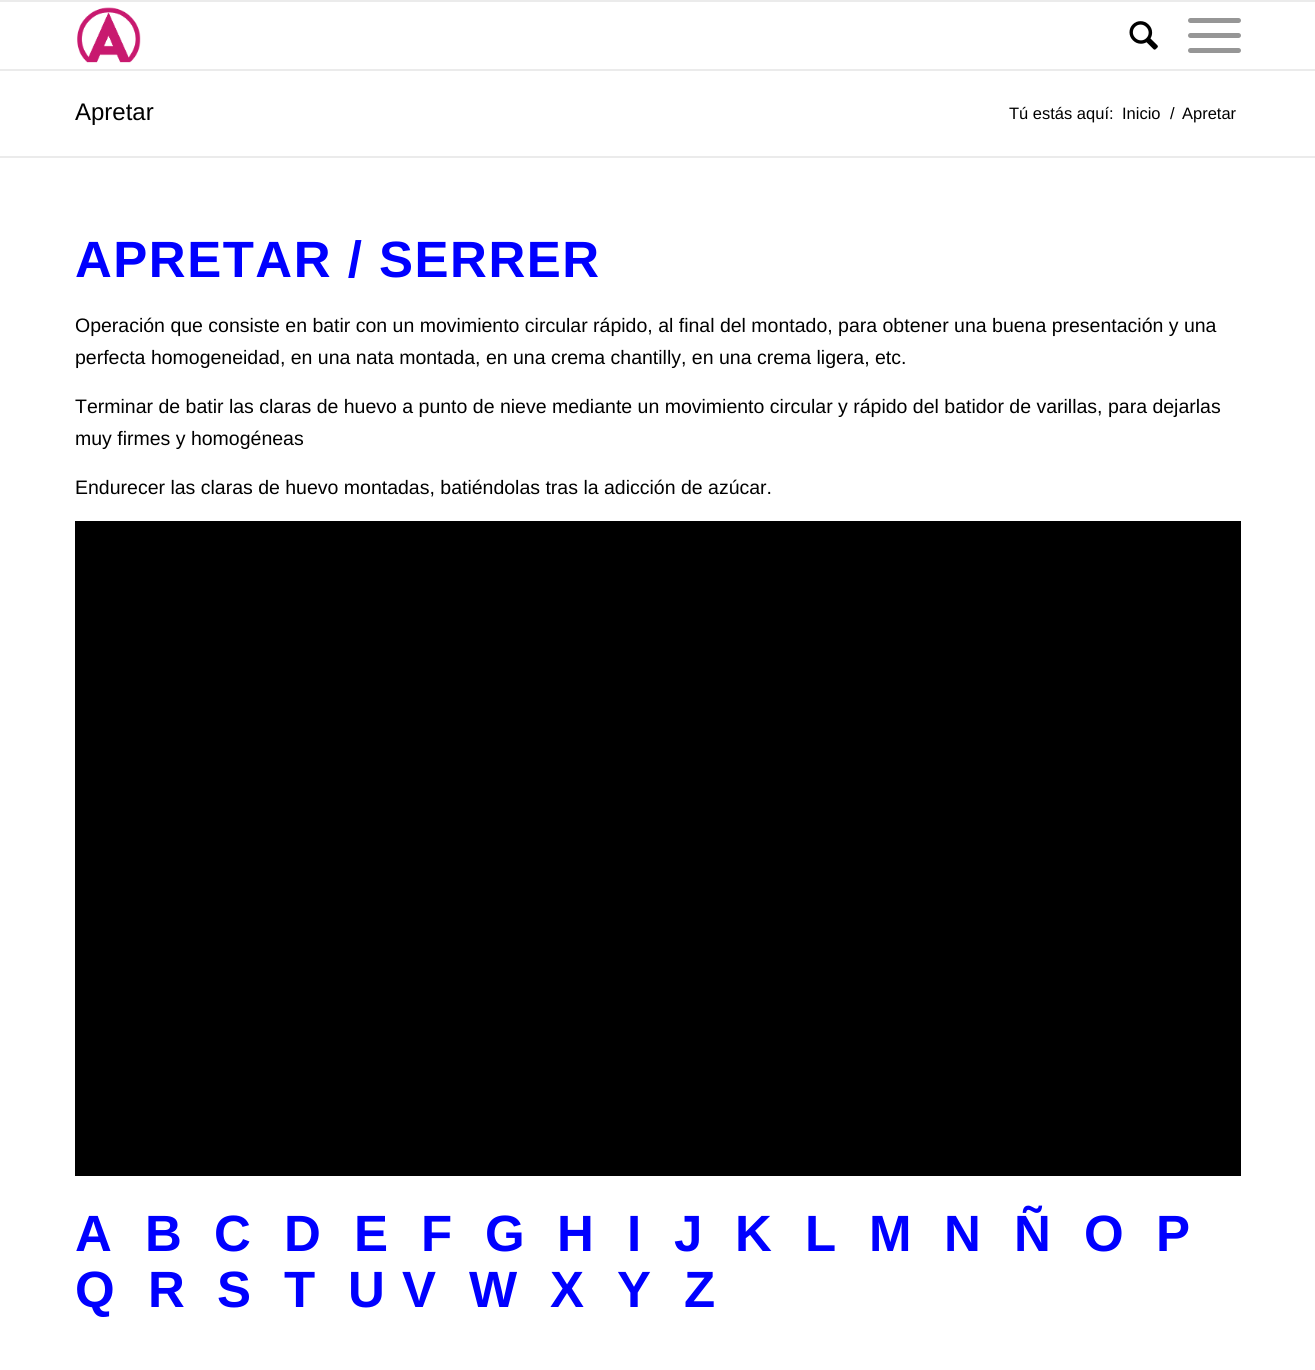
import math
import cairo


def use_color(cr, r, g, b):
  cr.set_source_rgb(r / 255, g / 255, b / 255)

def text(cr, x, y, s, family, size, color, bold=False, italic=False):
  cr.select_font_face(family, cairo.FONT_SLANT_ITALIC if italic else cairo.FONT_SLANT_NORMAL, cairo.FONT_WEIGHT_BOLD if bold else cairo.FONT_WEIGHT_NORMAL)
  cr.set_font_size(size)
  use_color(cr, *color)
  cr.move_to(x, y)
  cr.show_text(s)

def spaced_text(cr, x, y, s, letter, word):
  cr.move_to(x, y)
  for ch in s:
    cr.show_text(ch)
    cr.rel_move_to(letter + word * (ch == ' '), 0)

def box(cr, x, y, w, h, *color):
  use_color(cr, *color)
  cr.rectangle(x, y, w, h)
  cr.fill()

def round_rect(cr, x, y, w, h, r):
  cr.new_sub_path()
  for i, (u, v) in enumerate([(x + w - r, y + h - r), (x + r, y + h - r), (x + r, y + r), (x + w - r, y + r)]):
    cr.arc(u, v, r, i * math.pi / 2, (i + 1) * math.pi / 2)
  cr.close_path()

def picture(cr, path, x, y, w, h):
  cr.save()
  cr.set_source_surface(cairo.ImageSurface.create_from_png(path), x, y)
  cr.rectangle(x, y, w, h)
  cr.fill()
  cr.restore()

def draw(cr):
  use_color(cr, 255, 255, 255)
  cr.paint()
  box(cr, 0, 0, 1315, 2, 235, 235, 235)
  box(cr, 0, 69, 1315, 2, 235, 235, 235)
  picture(cr, "img_01.png", 77, 7, 64, 56)
  picture(cr, "img_02.png", 1129, 21, 29, 29)
  use_color(cr, 150, 150, 150)
  round_rect(cr, 1188, 33, 53, 5, 2.5)
  cr.fill()
  round_rect(cr, 1188, 18, 53, 5, 2.5)
  cr.fill()
  round_rect(cr, 1188, 48, 53, 5, 2.5)
  cr.fill()
  box(cr, 0, 156, 1315, 2, 235, 235, 235)
  box(cr, 75, 521, 1166, 655, 0, 0, 0)
  text(cr, 75, 120, "Apretar", "Liberation Sans", 24, (0, 0, 0))
  text(cr, 1009, 119, "Tú estás aquí:", "Liberation Sans", 16.5, (0, 0, 0))
  text(cr, 1122, 119, "Inicio", "Liberation Sans", 16.5, (0, 0, 0))
  text(cr, 1170, 119, "/", "Liberation Sans", 16.5, (0, 0, 0))
  text(cr, 1182, 119, "Apretar", "Liberation Sans", 16.5, (0, 0, 0))
  cr.select_font_face("Liberation Sans", cairo.FONT_SLANT_NORMAL, cairo.FONT_WEIGHT_BOLD)
  cr.set_font_size(51)
  use_color(cr, 0, 0, 255)
  spaced_text(cr, 75, 277, "APRETAR / SERRER", 1.5, 0)
  text(cr, 75, 332, "Operación que consiste en batir con un movimiento circular rápido, al final del montado, para obtener una buena presentación y una", "Liberation Sans", 19.5, (0, 0, 0))
  text(cr, 75, 364, "perfecta homogeneidad, en una nata montada, en una crema chantilly, en una crema ligera, etc.", "Liberation Sans", 19.5, (0, 0, 0))
  text(cr, 75, 413, "Terminar de batir las claras de huevo a punto de nieve mediante un movimiento circular y rápido del batidor de varillas, para dejarlas", "Liberation Sans", 19.5, (0, 0, 0))
  text(cr, 75, 445, "muy firmes y homogéneas", "Liberation Sans", 19.5, (0, 0, 0))
  text(cr, 75, 494, "Endurecer las claras de huevo montadas, batiéndolas tras la adicción de azúcar.", "Liberation Sans", 19.5, (0, 0, 0))
  cr.select_font_face("Liberation Sans", cairo.FONT_SLANT_NORMAL, cairo.FONT_WEIGHT_BOLD)
  cr.set_font_size(51)
  use_color(cr, 0, 0, 255)
  spaced_text(cr, 75, 1251, "A", 1.5, 0)
  spaced_text(cr, 145, 1251, "B", 1.5, 0)
  spaced_text(cr, 214, 1251, "C", 1.5, 0)
  spaced_text(cr, 284, 1251, "D", 1.5, 0)
  spaced_text(cr, 354, 1251, "E", 1.5, 0)
  spaced_text(cr, 421, 1251, "F", 1.5, 0)
  spaced_text(cr, 485, 1251, "G", 1.5, 0)
  spaced_text(cr, 557, 1251, "H", 1.5, 0)
  spaced_text(cr, 627, 1251, "I", 1.5, 0)
  spaced_text(cr, 674, 1251, "J", 1.5, 0)
  spaced_text(cr, 735, 1251, "K", 1.5, 0)
  spaced_text(cr, 805, 1251, "L", 1.5, 0)
  spaced_text(cr, 869, 1251, "M", 1.5, 0)
  spaced_text(cr, 944, 1251, "N", 1.5, 0)
  spaced_text(cr, 1014, 1251, "Ñ", 1.5, 0)
  spaced_text(cr, 1084, 1251, "O", 1.5, 0)
  spaced_text(cr, 1156, 1251, "P", 1.5, 0)
  spaced_text(cr, 75, 1307, "Q", 1.5, 0)
  spaced_text(cr, 148, 1307, "R", 1.5, 0)
  spaced_text(cr, 217, 1307, "S", 1.5, 0)
  spaced_text(cr, 284, 1307, "T", 1.5, 0)
  spaced_text(cr, 348, 1307, "U V", 1.5, 0)
  spaced_text(cr, 469, 1307, "W", 1.5, 0)
  spaced_text(cr, 550, 1307, "X", 1.5, 0)
  spaced_text(cr, 617, 1307, "Y", 1.5, 0)
  spaced_text(cr, 684, 1307, "Z", 1.5, 0)


surface = cairo.ImageSurface(cairo.FORMAT_RGB24, 1315, 1370)
cr = cairo.Context(surface)
options = cairo.FontOptions()
options.set_hint_metrics(cairo.HINT_METRICS_OFF)
options.set_hint_style(cairo.HINT_STYLE_NONE)
cr.set_font_options(options)
cr.set_miter_limit(4)
draw(cr)
surface.write_to_png("out.png")
